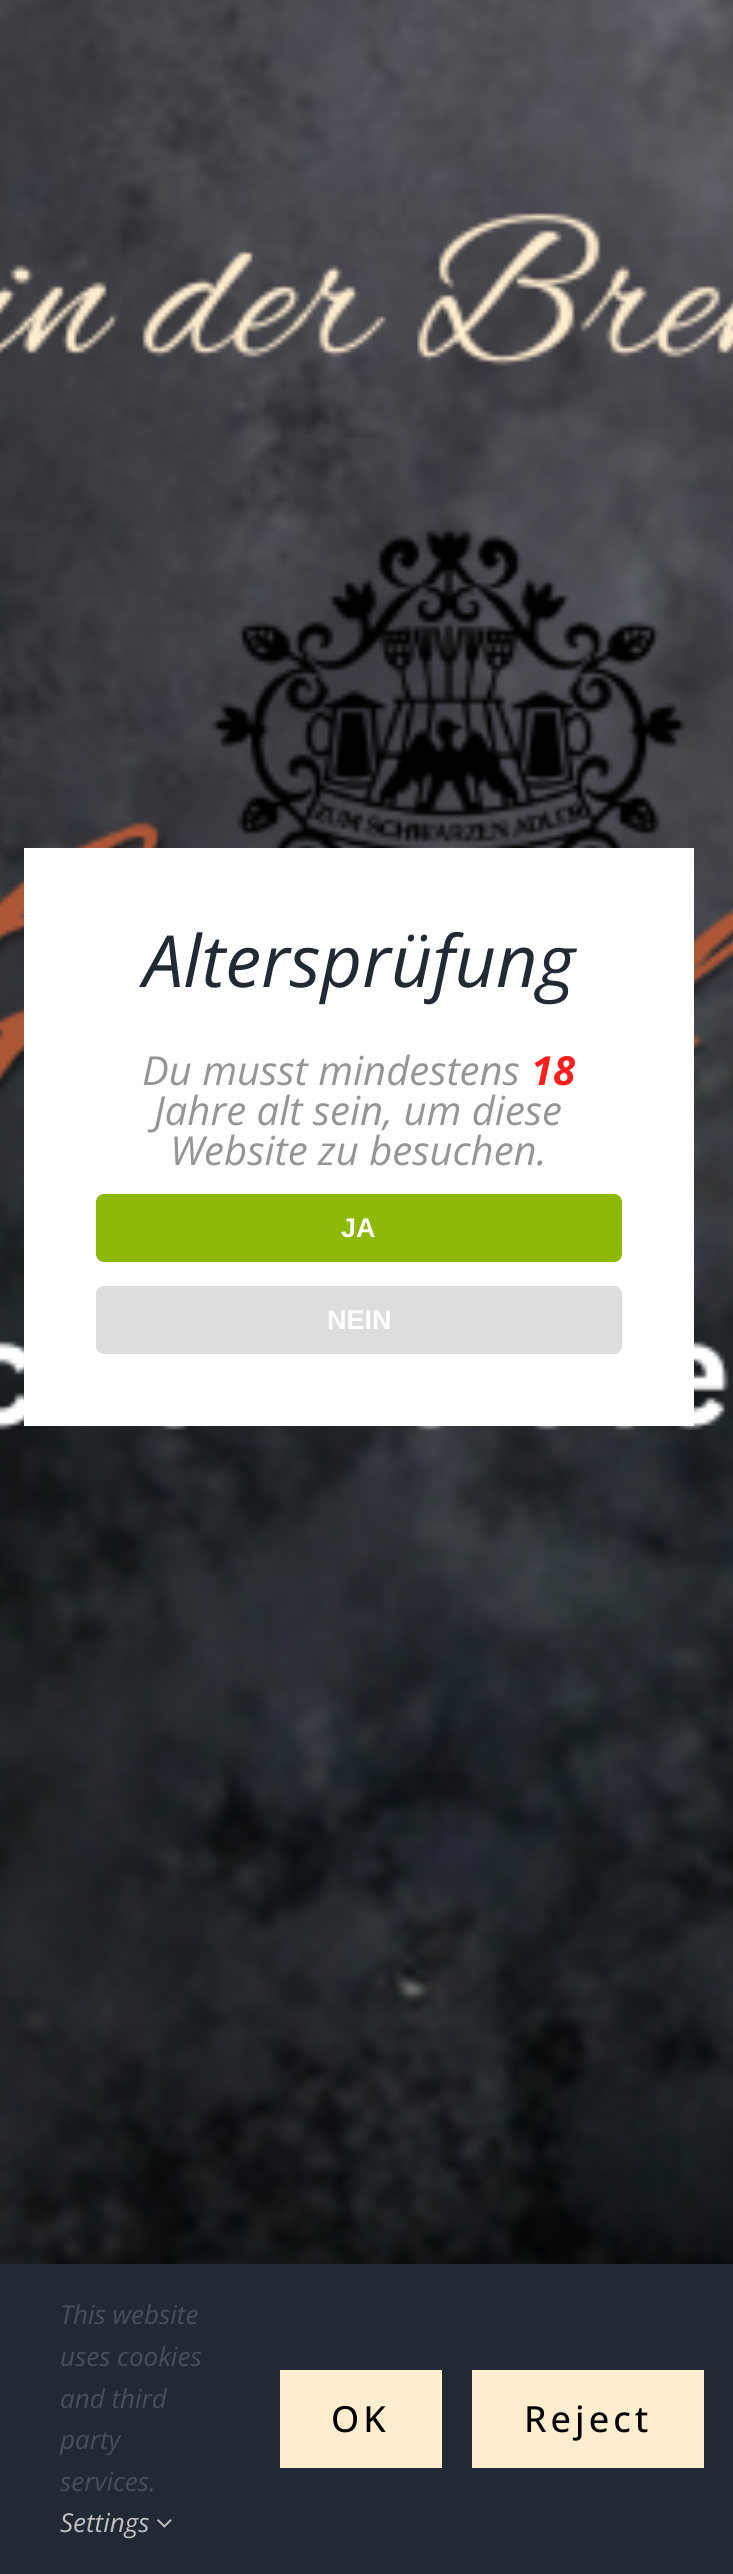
import math
import cairo


def use_color(cr, r, g, b):
  cr.set_source_rgb(r / 255, g / 255, b / 255)

def text(cr, x, y, s, family, size, color, bold=False, italic=False):
  cr.select_font_face(family, cairo.FONT_SLANT_ITALIC if italic else cairo.FONT_SLANT_NORMAL, cairo.FONT_WEIGHT_BOLD if bold else cairo.FONT_WEIGHT_NORMAL)
  cr.set_font_size(size)
  use_color(cr, *color)
  cr.move_to(x, y)
  cr.show_text(s)

def spaced_text(cr, x, y, s, letter, word):
  cr.move_to(x, y)
  for ch in s:
    cr.show_text(ch)
    cr.rel_move_to(letter + word * (ch == ' '), 0)

def box(cr, x, y, w, h, *color):
  use_color(cr, *color)
  cr.rectangle(x, y, w, h)
  cr.fill()

def round_rect(cr, x, y, w, h, r):
  cr.new_sub_path()
  for i, (u, v) in enumerate([(x + w - r, y + h - r), (x + r, y + h - r), (x + r, y + r), (x + w - r, y + r)]):
    cr.arc(u, v, r, i * math.pi / 2, (i + 1) * math.pi / 2)
  cr.close_path()

def picture(cr, path, x, y, w, h):
  cr.save()
  cr.set_source_surface(cairo.ImageSurface.create_from_png(path), x, y)
  cr.rectangle(x, y, w, h)
  cr.fill()
  cr.restore()

def draw(cr):
  use_color(cr, 255, 255, 255)
  cr.paint()
  picture(cr, "img_01.png", 0, 0, 733, 2264)
  box(cr, 24, 848, 670, 578, 255, 255, 255)
  use_color(cr, 142, 185, 8)
  round_rect(cr, 96, 1194, 526, 68, 8)
  cr.fill()
  use_color(cr, 221, 221, 221)
  round_rect(cr, 96, 1286, 526, 68, 8)
  cr.fill()
  box(cr, 0, 2264, 733, 310, 33, 41, 52)
  picture(cr, "img_02.png", 157, 2519, 15, 9)
  box(cr, 280, 2370, 162, 98, 255, 237, 208)
  box(cr, 472, 2370, 232, 98, 255, 237, 208)
  text(cr, 143, 987, "Altersprüfung", "Open Sans", 72, (33, 41, 52), italic=True)
  text(cr, 142, 1085, "Du musst mindestens", "Open Sans", 40, (149, 149, 149), italic=True)
  text(cr, 531, 1085, "18", "Open Sans", 40, (255, 31, 31), bold=True, italic=True)
  text(cr, 154, 1125, "Jahre alt sein, um diese", "Open Sans", 40, (149, 149, 149), italic=True)
  text(cr, 170, 1165, "Website zu besuchen.", "Open Sans", 40, (149, 149, 149), italic=True)
  text(cr, 341, 1237, "JA", "Liberation Sans", 27, (255, 255, 255), bold=True)
  text(cr, 327, 1329, "NEIN", "Liberation Sans", 27, (255, 255, 255), bold=True)
  text(cr, 60, 2324, "This website", "Open Sans", 26, (74, 78, 87), italic=True)
  text(cr, 60, 2366, "uses cookies", "Open Sans", 26, (74, 78, 87), italic=True)
  text(cr, 60, 2408, "and third", "Open Sans", 26, (74, 78, 87), italic=True)
  text(cr, 60, 2449, "party", "Open Sans", 26, (74, 78, 87), italic=True)
  text(cr, 60, 2491, "services.", "Open Sans", 26, (74, 78, 87), italic=True)
  text(cr, 60, 2532, "Settings", "Open Sans", 26, (191, 191, 191), italic=True)
  cr.select_font_face("Open Sans Medium")
  cr.set_font_size(36)
  use_color(cr, 0, 0, 0)
  spaced_text(cr, 331, 2432, "OK", 4, 0)
  spaced_text(cr, 524, 2432, "Reject", 4, 0)


surface = cairo.ImageSurface(cairo.FORMAT_RGB24, 733, 2574)
cr = cairo.Context(surface)
options = cairo.FontOptions()
options.set_hint_metrics(cairo.HINT_METRICS_OFF)
options.set_hint_style(cairo.HINT_STYLE_NONE)
cr.set_font_options(options)
cr.set_miter_limit(4)
draw(cr)
surface.write_to_png("out.png")
